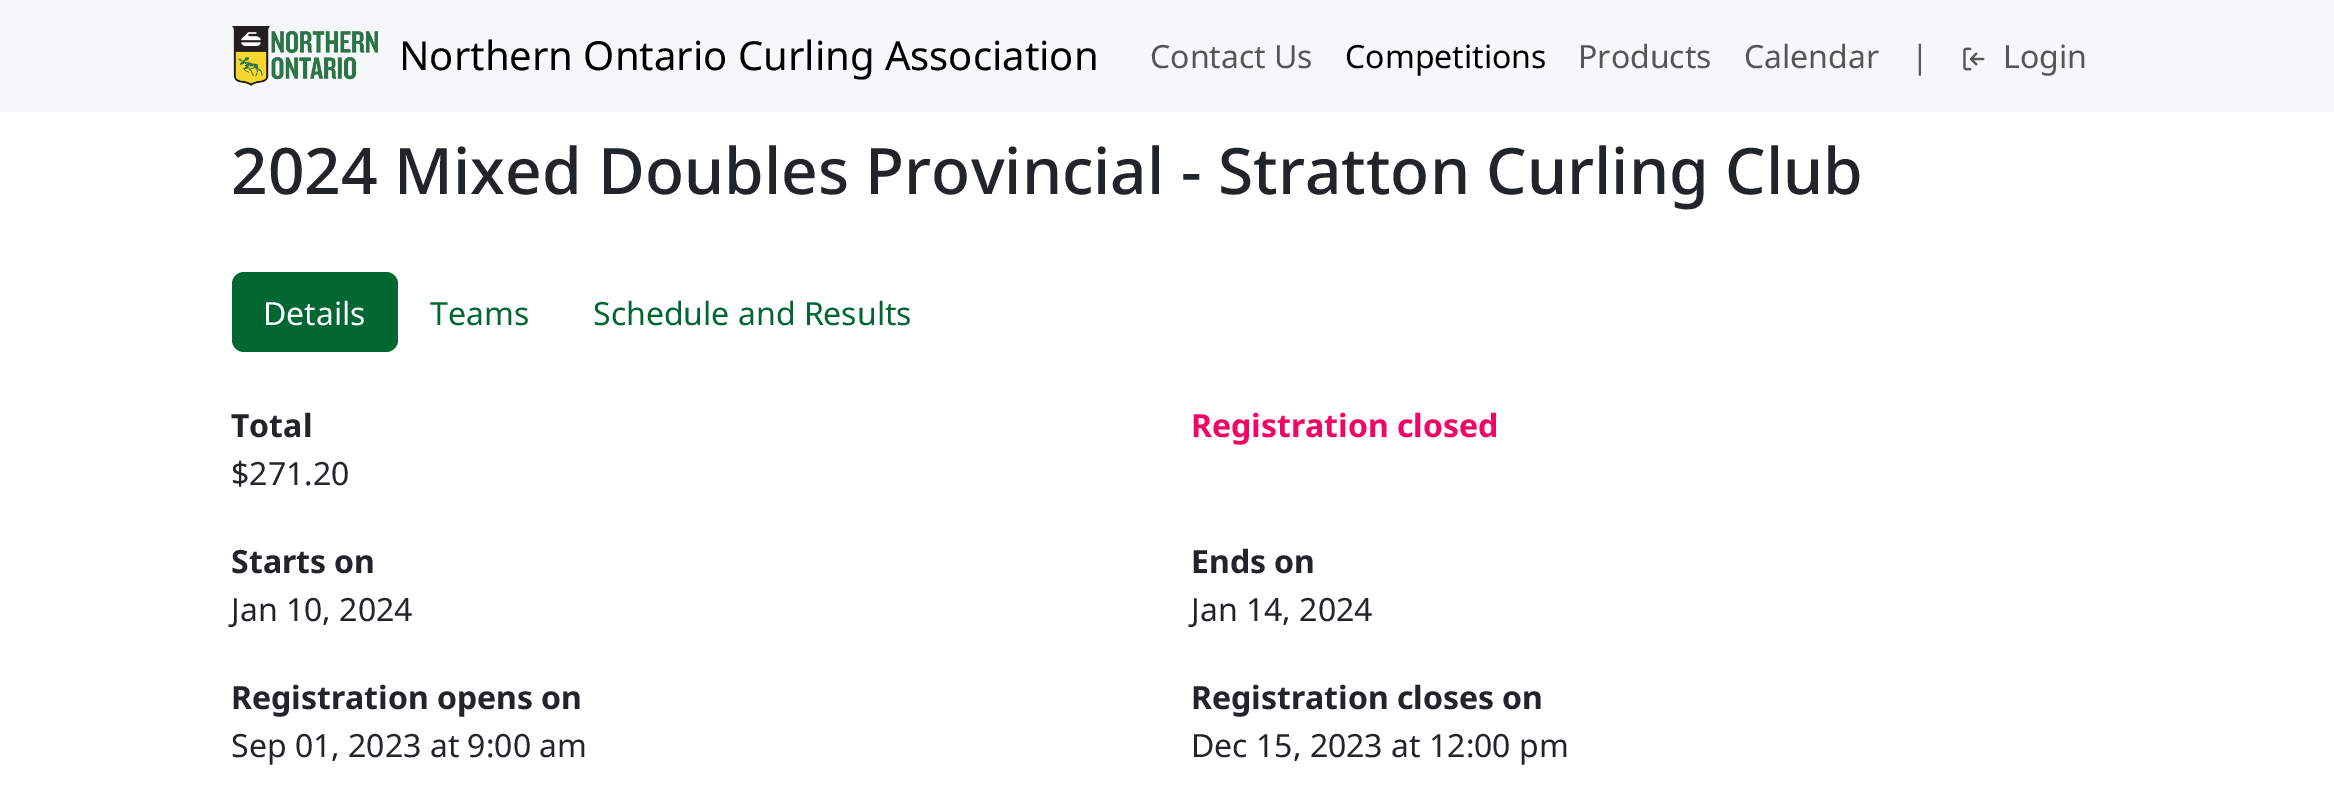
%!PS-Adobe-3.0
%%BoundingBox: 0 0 2334 795
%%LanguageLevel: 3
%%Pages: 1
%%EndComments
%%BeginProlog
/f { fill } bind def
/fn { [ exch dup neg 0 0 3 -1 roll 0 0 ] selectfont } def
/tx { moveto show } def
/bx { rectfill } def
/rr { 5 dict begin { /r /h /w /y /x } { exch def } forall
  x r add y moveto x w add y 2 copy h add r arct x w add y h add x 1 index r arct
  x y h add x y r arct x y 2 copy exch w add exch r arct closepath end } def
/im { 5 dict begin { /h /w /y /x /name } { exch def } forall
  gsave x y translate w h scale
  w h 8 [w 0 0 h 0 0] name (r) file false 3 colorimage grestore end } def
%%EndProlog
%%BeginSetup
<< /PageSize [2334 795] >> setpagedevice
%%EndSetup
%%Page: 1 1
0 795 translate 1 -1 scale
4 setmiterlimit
1 setgray
0 0 2334 795 bx
0.965 0.969 0.976 setrgbcolor
0 0 2334 112 bx
(image0.raw) 232 26 146 60 im
/NotoSans-Regular 40 fn
0 setgray
(Northern Ontario Curling Association) 399 70 tx
/NotoSans-Regular 32 fn
0.337 0.337 0.341 setrgbcolor
(Contact Us) 1150 68 tx
0 setgray
(Competitions) 1345 68 tx
0.337 0.337 0.341 setrgbcolor
(Products) 1578 68 tx
(Calendar) 1744 68 tx
(|) 1911 68 tx
(image1.raw) 1963 47 22 24 im
(Login) 2003 68 tx
/NotoSans-Medium 64 fn
0.129 0.145 0.161 setrgbcolor
(2024 Mixed Doubles Provincial - Stratton Curling Club) 231 194 tx
0 0.404 0.2 setrgbcolor
232 272 166 80 12 rr f
/NotoSans-Regular 32 fn
1 setgray
(Details) 263 325 tx
0 0.404 0.2 setrgbcolor
(Teams) 430 325 tx
(Schedule and Results) 593 325 tx
/NotoSans-Bold 32 fn
0.129 0.145 0.161 setrgbcolor
(Total) 231 437 tx
/NotoSans-Regular 32 fn
($271.20) 231 485 tx
/NotoSans-Bold 32 fn
0.941 0.027 0.4 setrgbcolor
(Registration closed) 1191 437 tx
0.129 0.145 0.161 setrgbcolor
(Starts on) 231 573 tx
/NotoSans-Regular 32 fn
(Jan 10, 2024) 231 621 tx
/NotoSans-Bold 32 fn
(Ends on) 1191 573 tx
/NotoSans-Regular 32 fn
(Jan 14, 2024) 1191 621 tx
/NotoSans-Bold 32 fn
(Registration opens on) 231 709 tx
/NotoSans-Regular 32 fn
(Sep 01, 2023 at 9:00 am) 231 757 tx
/NotoSans-Bold 32 fn
(Registration closes on) 1191 709 tx
/NotoSans-Regular 32 fn
(Dec 15, 2023 at 12:00 pm) 1191 757 tx
showpage
%%EOF
